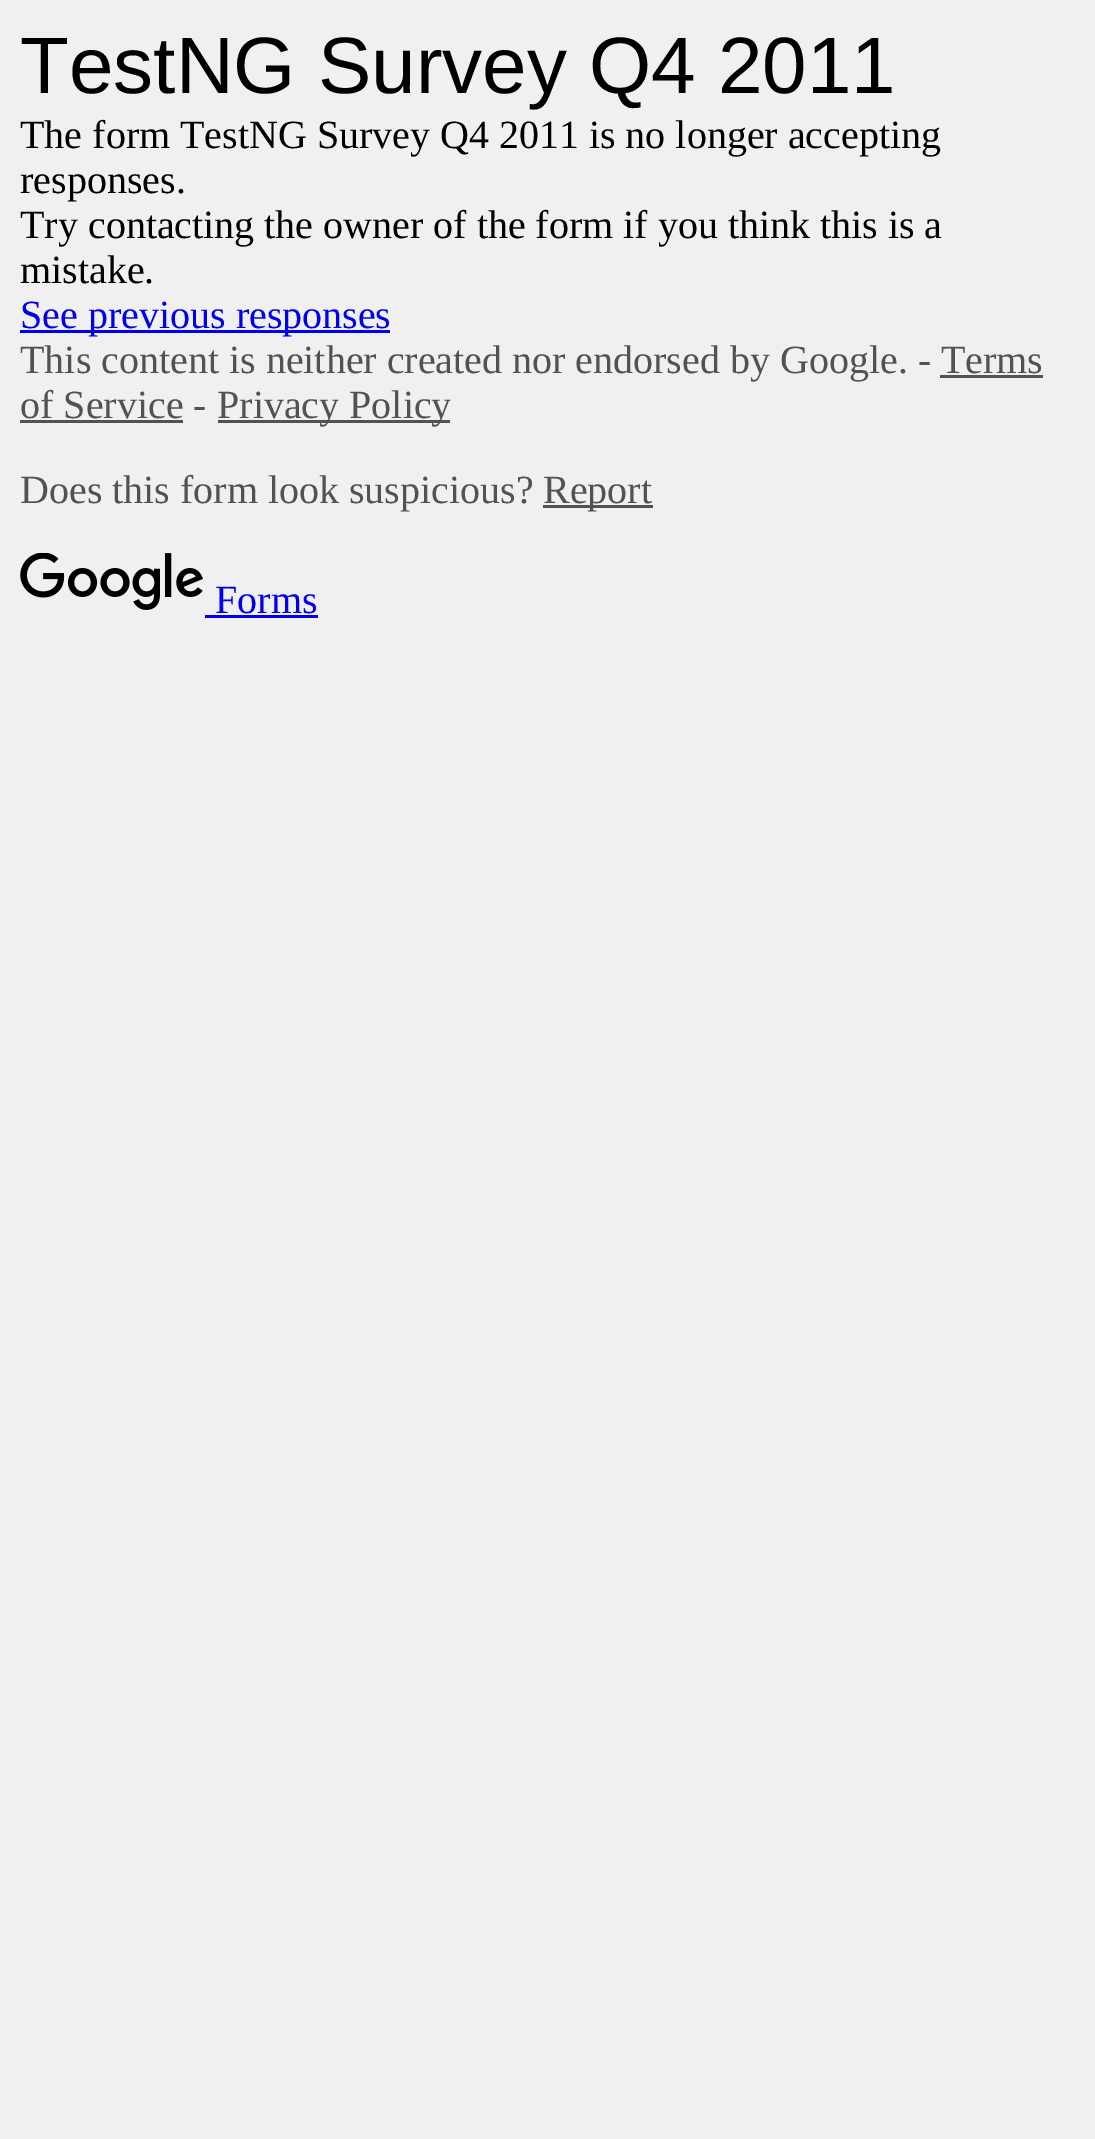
%!PS-Adobe-3.0
%%BoundingBox: 0 0 1095 2139
%%LanguageLevel: 3
%%Pages: 1
%%EndComments
%%BeginProlog
/fn { [ exch dup neg 0 0 3 -1 roll 0 0 ] selectfont } def
/tx { moveto show } def
/bx { rectfill } def
/im { 5 dict begin { /h /w /y /x /name } { exch def } forall
  gsave x y translate w h scale
  w h 8 [w 0 0 h 0 0] name (r) file false 3 colorimage grestore end } def
%%EndProlog
%%BeginSetup
<< /PageSize [1095 2139] >> setpagedevice
%%EndSetup
%%Page: 1 1
0 2139 translate 1 -1 scale
4 setmiterlimit
0.941 setgray
0 0 1095 2139 bx
/LiberationSans-Regular 80 fn
0 setgray
(TestNG Survey Q4 2011) 20 93 tx
/LiberationSerif-Regular 40 fn
(The form TestNG Survey Q4 2011 is no longer accepting) 20 148 tx
(responses.) 20 193 tx
(Try contacting the owner of the form if you think this is a) 20 238 tx
(mistake.) 20 283 tx
0 0 0.933 setrgbcolor
20 330 370 3 bx
(See previous responses) 20 328 tx
0.322 setgray
(This content is neither created nor endorsed by Google. - Terms) 20 373 tx
(of Service -) 20 418 tx
940 375 103 3 bx
20 420 163 3 bx
218 420 232 3 bx
(Privacy Policy) 217 418 tx
(Does this form look suspicious?) 20 503 tx
543 505 110 3 bx
(Report) 543 503 tx
(image0.raw) 20 553 183 57 im
0 0 0.933 setrgbcolor
(Forms) 215 613 tx
205 615 113 3 bx
showpage
%%EOF
